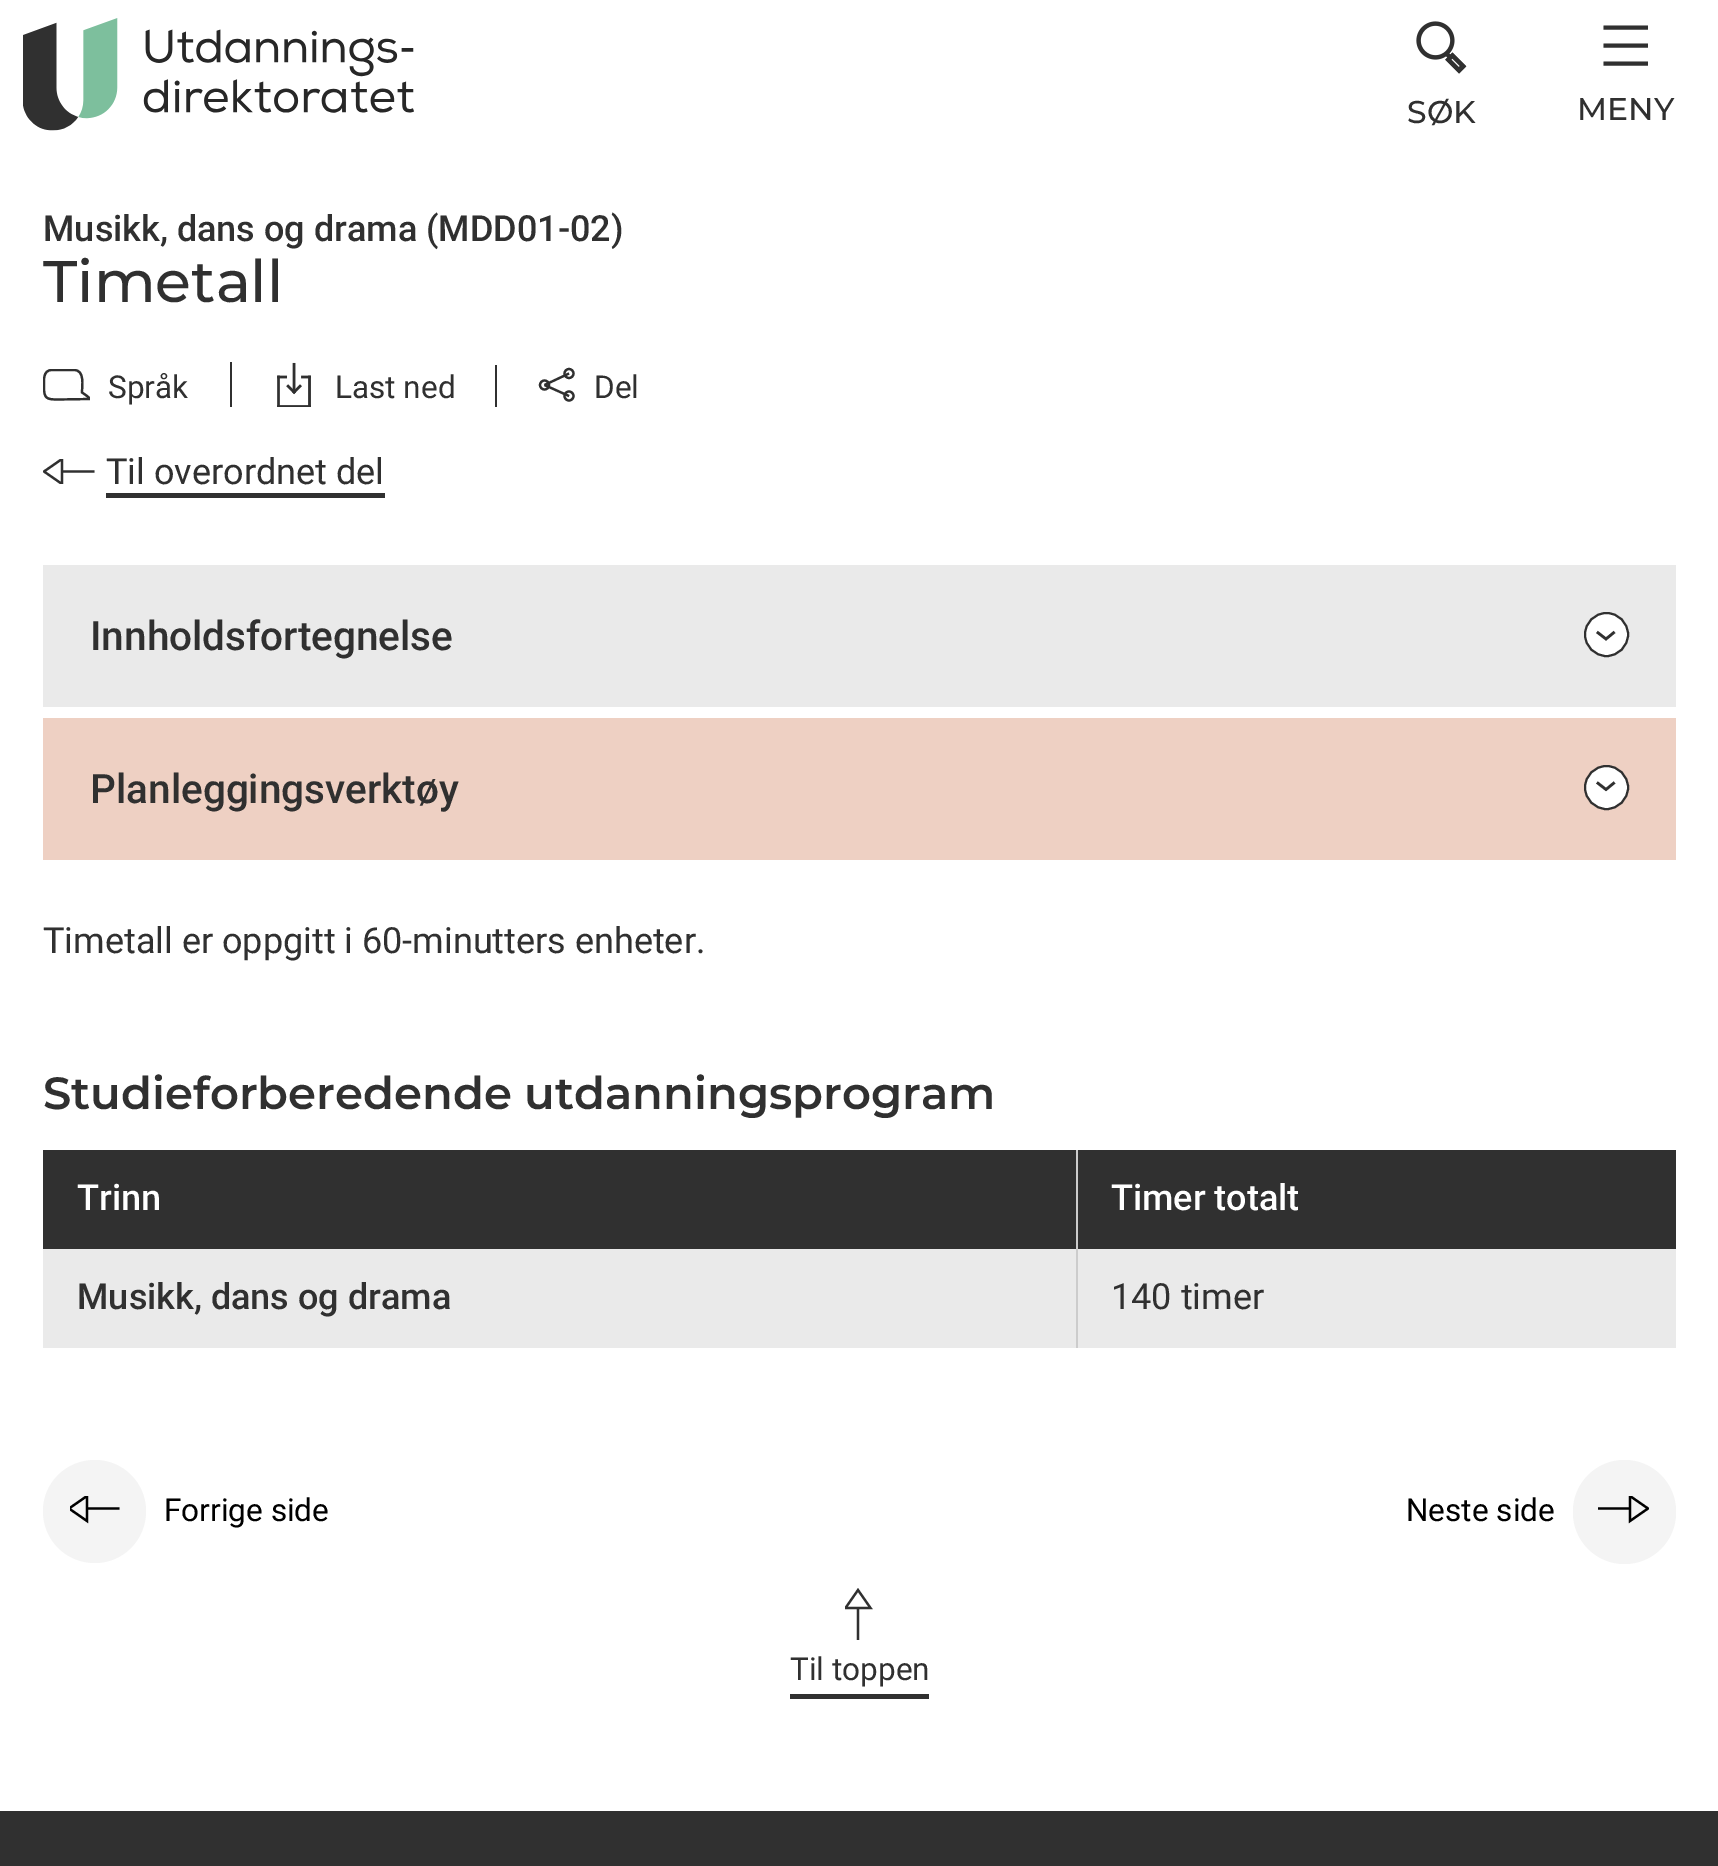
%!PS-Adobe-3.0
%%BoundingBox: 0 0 1718 1866
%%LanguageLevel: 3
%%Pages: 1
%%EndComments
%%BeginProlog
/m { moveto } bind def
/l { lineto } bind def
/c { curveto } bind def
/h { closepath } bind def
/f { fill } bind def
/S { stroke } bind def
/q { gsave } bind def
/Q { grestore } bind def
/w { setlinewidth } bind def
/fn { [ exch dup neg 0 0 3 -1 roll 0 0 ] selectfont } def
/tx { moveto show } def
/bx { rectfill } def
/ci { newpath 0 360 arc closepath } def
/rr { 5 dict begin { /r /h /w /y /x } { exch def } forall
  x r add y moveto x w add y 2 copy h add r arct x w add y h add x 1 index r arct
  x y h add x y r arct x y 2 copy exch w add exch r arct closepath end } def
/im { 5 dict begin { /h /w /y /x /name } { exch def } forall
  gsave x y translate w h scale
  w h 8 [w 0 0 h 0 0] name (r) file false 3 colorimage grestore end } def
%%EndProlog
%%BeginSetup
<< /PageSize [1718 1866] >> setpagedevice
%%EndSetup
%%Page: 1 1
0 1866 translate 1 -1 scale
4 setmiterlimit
1 setgray
0 0 1718 1866 bx
(image0.raw) 23 18 391 113 im
(image1.raw) 1416 21 51 53 im
/Montserrat-Medium 31.5 fn
0.188 setgray
(SØK) 1407 123 tx
4 w
2 setlinecap
1605.5 45.5 m 1646 45.5 l 1605.5 63.5 m 1646 63.5 l 1605.5 27.5 m 1646 27.5 l S
(MENY) 1577 120 tx
/Roboto-Medium 36 fn
(Musikk, dans og drama \(MDD01‑02\)) 43 241 tx
/Montserrat-Medium 58.5 fn
(Timetall) 43 302 tx
q
43 369 47 32 rectclip
2.2 w
0 setlinecap
52 370 m 42.5 370 44 381 44 387 c 44 398.5 46.5 399.5 58 399.5 c 89.5 399 l 90.5 398 83.5 393.5 82 392.5 c 82 385.5 85 370 74 370 c h S
Q
/Roboto-Regular 31.5 fn
(Språk) 108 398 tx
230 362 2 45 bx
(image2.raw) 277 362 34 45 im
(Last ned) 335 398 tx
495 365 2 42 bx
2.2 w
0 setlinecap
544.5 385 m 569 396 l 544.5 385 m 569 373.5 l S
569 373.5 4.5 ci S
569 396 4.5 ci S
544.5 385 4.5 ci S
(Del) 594 398 tx
q
43 459 52 25 rectclip
44 471.5 m 62 484 l 62 459 l h 63 471.5 m 94.5 471.5 l S
Q
/Roboto-Regular 36 fn
(Til overordnet del) 106 484 tx
106 493 279 5 bx
0.918 setgray
43 565 1633 142 bx
/Roboto-Medium 40.5 fn
0.188 setgray
(Innholdsfortegnelse) 90 650 tx
1 setgray
1606.5 634.5 21.5 ci q f Q
0.188 setgray
2 w
S
2.6 w
1597 632 m 1606 639 l 1614.5 632 l S
0.933 0.816 0.765 setrgbcolor
43 718 1633 142 bx
0.188 setgray
(Planleggingsverktøy) 90 803 tx
1 setgray
1606.5 787.5 21.5 ci q f Q
0.188 setgray
2 w
S
2.6 w
1597 782.5 m 1606 789.5 l 1614.5 782.5 l S
/Roboto-Regular 36 fn
(Timetall er oppgitt i 60-minutters enheter.) 43 953 tx
/Montserrat-SemiBold 45 fn
(Studieforberedende utdanningsprogram) 43 1109 tx
43 1150 1033 99 bx
/Roboto-Medium 36 fn
1 setgray
(Trinn) 77 1210 tx
0.188 setgray
1078 1150 598 99 bx
1 setgray
(Timer totalt) 1111 1210 tx
0.918 setgray
43 1249 1033 99 bx
0.8 setgray
1076 1150 2 198 bx
0.188 setgray
(Musikk, dans og drama) 77 1309 tx
0.918 setgray
1078 1249 598 99 bx
/Roboto-Regular 36 fn
0.188 setgray
(140 timer) 1111 1309 tx
0.957 setgray
95 1460 m 66 1460 43 1483 43 1511 c 43 1540 66 1563 95 1563 c 123 1563 146 1540 146 1511 c 146 1483 123 1460 95 1460 c h f
q
70 1496 52 30 rectclip
0 setgray
2.2 w
69 1508.5 m 87 1521 l 87 1496 l h 88 1508.5 m 119.5 1508.5 l S
Q
/Roboto-Regular 31.5 fn
0 setgray
(Forrige side) 164 1521 tx
(Neste side) 1406 1521 tx
0.957 setgray
1573 1460 103 104 51.5 rr f
q
1598 1496 51 30 rectclip
0 setgray
2.2 w
1648 1508.5 m 1630 1521 l 1630 1496 l h 1629 1508.5 m 1597.5 1508.5 l S
Q
0.188 setgray
790 1694 139 5 bx
q
845 1639.5 m 845 1588 l 874 1588 l 874 1639.5 l h clip newpath
2.2 w
858 1590 m 870.5 1608 l 845.5 1608 l h 858 1609 m 858 1640.5 l S
Q
(Til toppen) 790 1680 tx
0 1811 1718 55 bx
showpage
%%EOF
